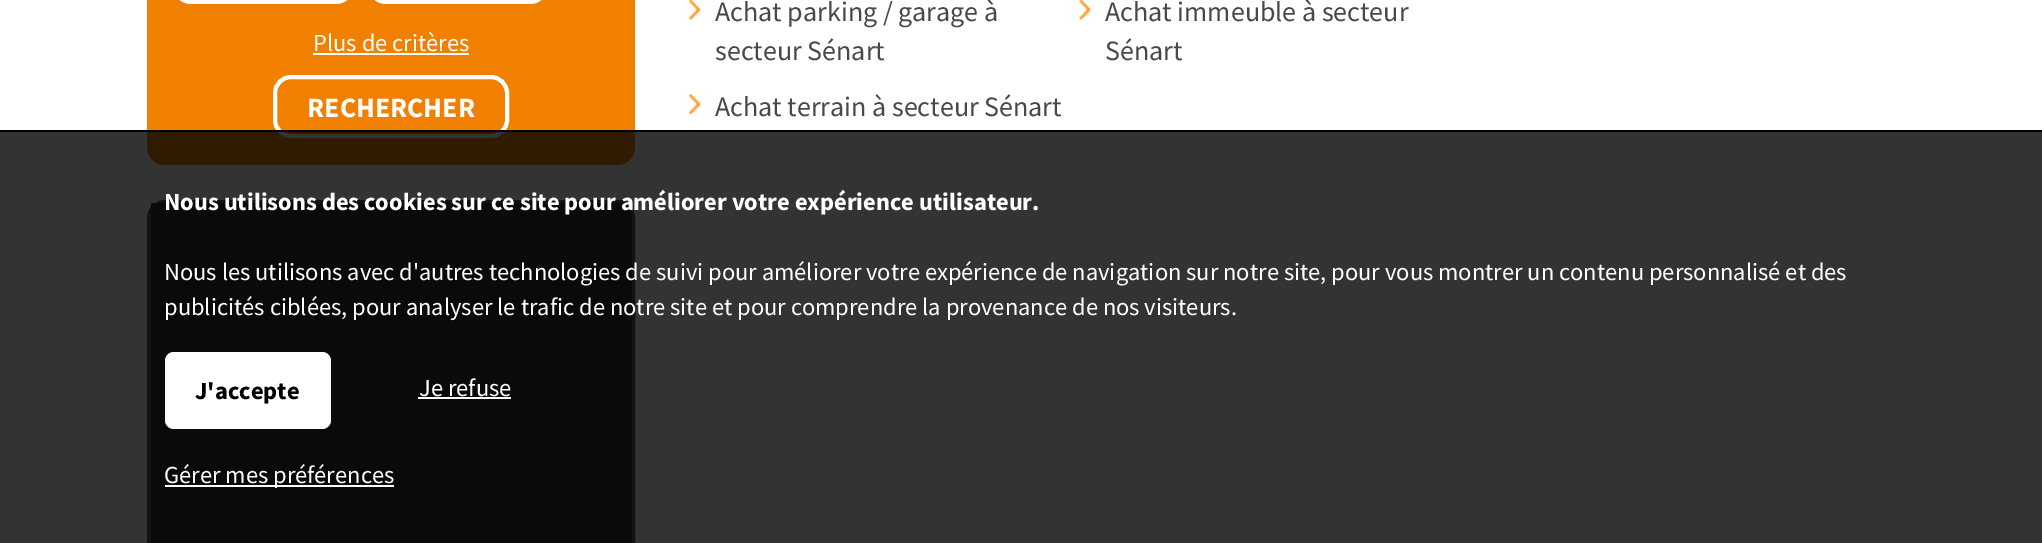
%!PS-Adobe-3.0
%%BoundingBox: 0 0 2042 543
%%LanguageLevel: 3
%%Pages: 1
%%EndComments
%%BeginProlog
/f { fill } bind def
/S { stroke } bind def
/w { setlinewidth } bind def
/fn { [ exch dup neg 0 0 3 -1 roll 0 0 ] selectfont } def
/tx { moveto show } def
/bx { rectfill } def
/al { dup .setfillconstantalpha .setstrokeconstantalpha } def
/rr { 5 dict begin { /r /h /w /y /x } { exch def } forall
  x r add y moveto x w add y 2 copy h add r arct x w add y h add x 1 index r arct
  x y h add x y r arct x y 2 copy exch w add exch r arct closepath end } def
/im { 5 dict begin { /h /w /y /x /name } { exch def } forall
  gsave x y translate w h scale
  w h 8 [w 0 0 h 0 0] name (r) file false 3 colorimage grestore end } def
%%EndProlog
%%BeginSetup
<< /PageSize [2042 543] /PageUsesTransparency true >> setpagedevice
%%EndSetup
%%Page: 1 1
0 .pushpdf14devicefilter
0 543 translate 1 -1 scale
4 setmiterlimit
1 setgray
0 0 2042 543 bx
0.945 0.502 0 setrgbcolor
147 -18 488 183 18 rr f
1 setgray
173 -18 181 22 18 rr f
368 -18 180 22 18 rr f
/SourceSansPro-Regular 24.5 fn
(Plus de critères) 313 51 tx
313 53 156 2 bx
4 w
275 77 232 59 16 rr S
/SourceSansPro-Bold 28 fn
(RECHERCHER) 307 117 tx
0.345 0.345 0.353 setrgbcolor
149 202 484 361 16 rr S
0.2 setgray
151 203 481 340 bx
(image0.raw) 689 0 12 20 im
/SourceSansPro-Regular 28 fn
0.282 0.282 0.29 setrgbcolor
(Achat parking / garage à) 715 21 tx
(secteur Sénart) 715 60 tx
(image1.raw) 1079 0 12 20 im
(Achat immeuble à secteur) 1105 21 tx
(Sénart) 1105 60 tx
(image2.raw) 689 94 12 21 im
(Achat terrain à secteur Sénart) 715 116 tx
0.8 al
0 setgray
0 132 2042 411 bx
1 al
0 130 2042 2 bx
/SourceSansPro-Bold 24.5 fn
1 setgray
(Nous utilisons des cookies sur ce site pour améliorer votre expérience utilisateur.) 164 210 tx
/SourceSansPro-Regular 24.5 fn
(Nous les utilisons avec d'autres technologies de suivi pour améliorer votre expérience de navigation sur notre site, pour vous montrer un contenu personnalisé et des) 164 280 tx
(publicités ciblées, pour analyser le trafic de notre site et pour comprendre la provenance de nos visiteurs.) 164 315 tx
165 352 166 77 9 rr f
/SourceSansPro-Bold 24.5 fn
0 setgray
(J'accepte) 195 399 tx
/SourceSansPro-Regular 24.5 fn
1 setgray
(Je refuse) 419 396 tx
418 397 93 2 bx
165 485 229 2 bx
(Gérer mes préférences) 164 483 tx
.poppdf14devicefilter showpage
%%EOF
